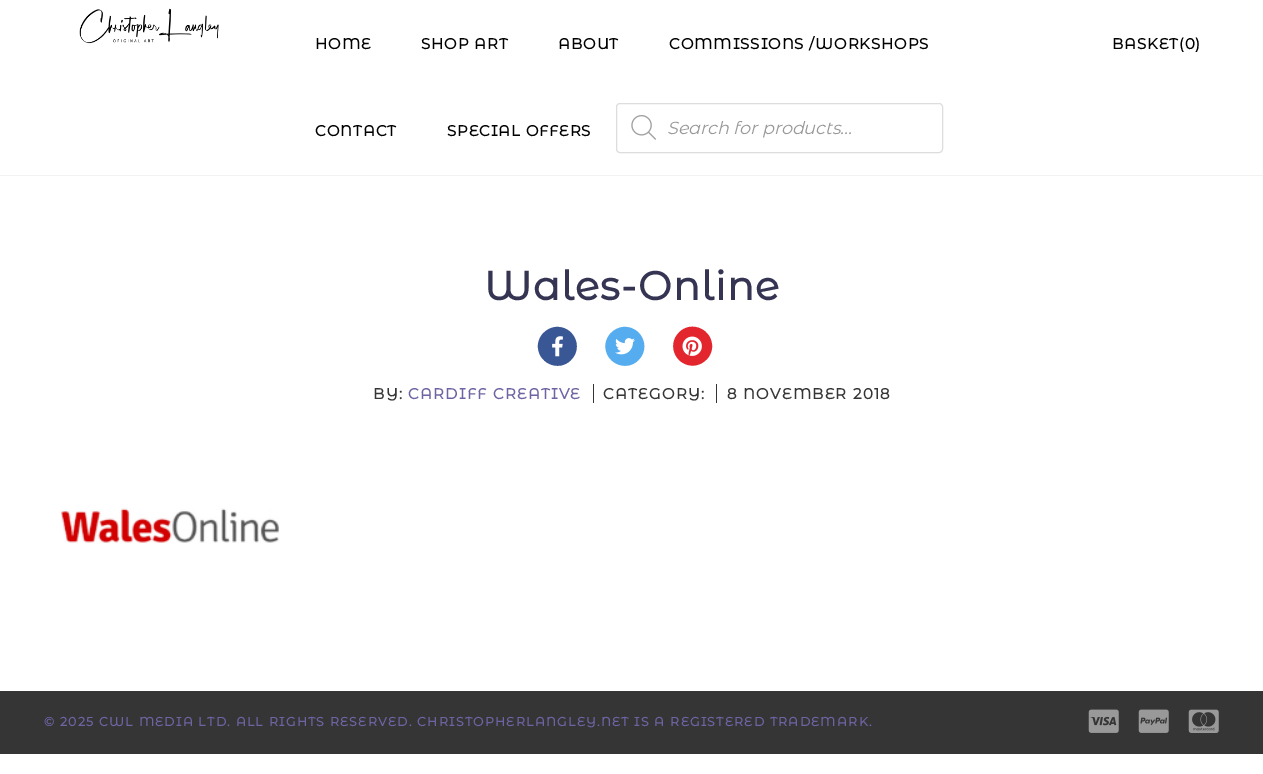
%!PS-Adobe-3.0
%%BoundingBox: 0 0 1263 774
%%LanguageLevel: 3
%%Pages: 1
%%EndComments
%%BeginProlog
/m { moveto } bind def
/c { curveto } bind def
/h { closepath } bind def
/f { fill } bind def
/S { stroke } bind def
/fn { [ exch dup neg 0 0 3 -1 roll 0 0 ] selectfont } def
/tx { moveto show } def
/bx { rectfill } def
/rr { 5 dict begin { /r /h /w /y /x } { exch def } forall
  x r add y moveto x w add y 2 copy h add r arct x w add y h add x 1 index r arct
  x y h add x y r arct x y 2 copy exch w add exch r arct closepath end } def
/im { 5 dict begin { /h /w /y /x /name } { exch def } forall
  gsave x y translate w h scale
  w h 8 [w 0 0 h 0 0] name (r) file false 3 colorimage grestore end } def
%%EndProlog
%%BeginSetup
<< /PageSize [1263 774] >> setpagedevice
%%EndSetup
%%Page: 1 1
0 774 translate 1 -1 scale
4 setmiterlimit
1 setgray
0 0 1263 774 bx
0.949 setgray
0 175 1263 1 bx
(image0.raw) 79 8 140 36 im
/MontserratAlternates-Bold 15 fn
0 setgray
315 49 m 0.9 0 (HOME) ashow
421 49 m 0.9 0 (SHOP ART) ashow
558 49 m 0.9 0 (ABOUT) ashow
669 49 m 0.9 0 (COMMISSIONS /WORKSHOPS) ashow
315 136 m 0.9 0 (CONTACT) ashow
447 136 m 0.9 0 (SPECIAL OFFERS) ashow
0.867 setgray
616.5 103.5 326 49 3.5 rr S
(image1.raw) 631 115 25 25 im
/MontserratAlternates-Italic 17.5 fn
0.6 setgray
(Search for products...) 667 134 tx
/MontserratAlternates-Bold 15 fn
0 setgray
1112 49 m 0.9 0 (BASKET\(0\)) ashow
/MontserratAlternates-Bold 40 fn
0.208 0.208 0.325 setrgbcolor
484 300 m 1.25 0 (Wales-Online) ashow
0.227 0.341 0.584 setrgbcolor
544 332.5 m 547 329.5 551 327.5 555.5 327 c 573.5 325.5 584 347 571 360 c 558.5 373 536.5 362.5 538 344.5 c 538.5 340 540.5 335.5 544 332.5 c h f
(image2.raw) 552 336 11 21 im
0.333 0.675 0.933 setrgbcolor
611.5 332.5 m 614.5 329.5 618.5 327.5 623 327 c 641 325.5 651.5 347 638.5 360 c 626 373 604 362.5 605.5 344.5 c 606 340 608 335.5 611.5 332.5 c h f
(image3.raw) 615 338 20 17 im
0.89 0.149 0.18 setrgbcolor
679 332.5 m 691.5 319.5 713.5 330 712 348 c 711.5 352.5 709.5 357 706 360 c 703 363 699 365 694.5 365.5 c 676.5 367 666 345.5 679 332.5 c h f
(image4.raw) 682 336 20 20 im
/MontserratAlternates-Bold 15 fn
0.208 setgray
373 399 m 1.25 0 (BY:) ashow
0.435 0.388 0.639 setrgbcolor
408 399 m 1.25 0 (CARDIFF CREATIVE) ashow
0.208 setgray
593 384 1 19 bx
603 399 m 1.25 0 (CATEGORY:) ashow
716 384 1 19 bx
727 399 m 1.25 0 (8 NOVEMBER 2018) ashow
(image5.raw) 61 508 219 35 im
0 691 1263 63 bx
/MontserratAlternates-Bold 12.5 fn
0.435 0.388 0.639 setrgbcolor
44 726 m 1.25 0 (© 2025 CWL MEDIA LTD. ALL RIGHTS RESERVED. CHRISTOPHERLANGLEY.NET IS A REGISTERED TRADEMARK.) ashow
(image6.raw) 1088 709 31 24 im
(image7.raw) 1138 709 31 24 im
(image8.raw) 1188 709 31 24 im
showpage
%%EOF
